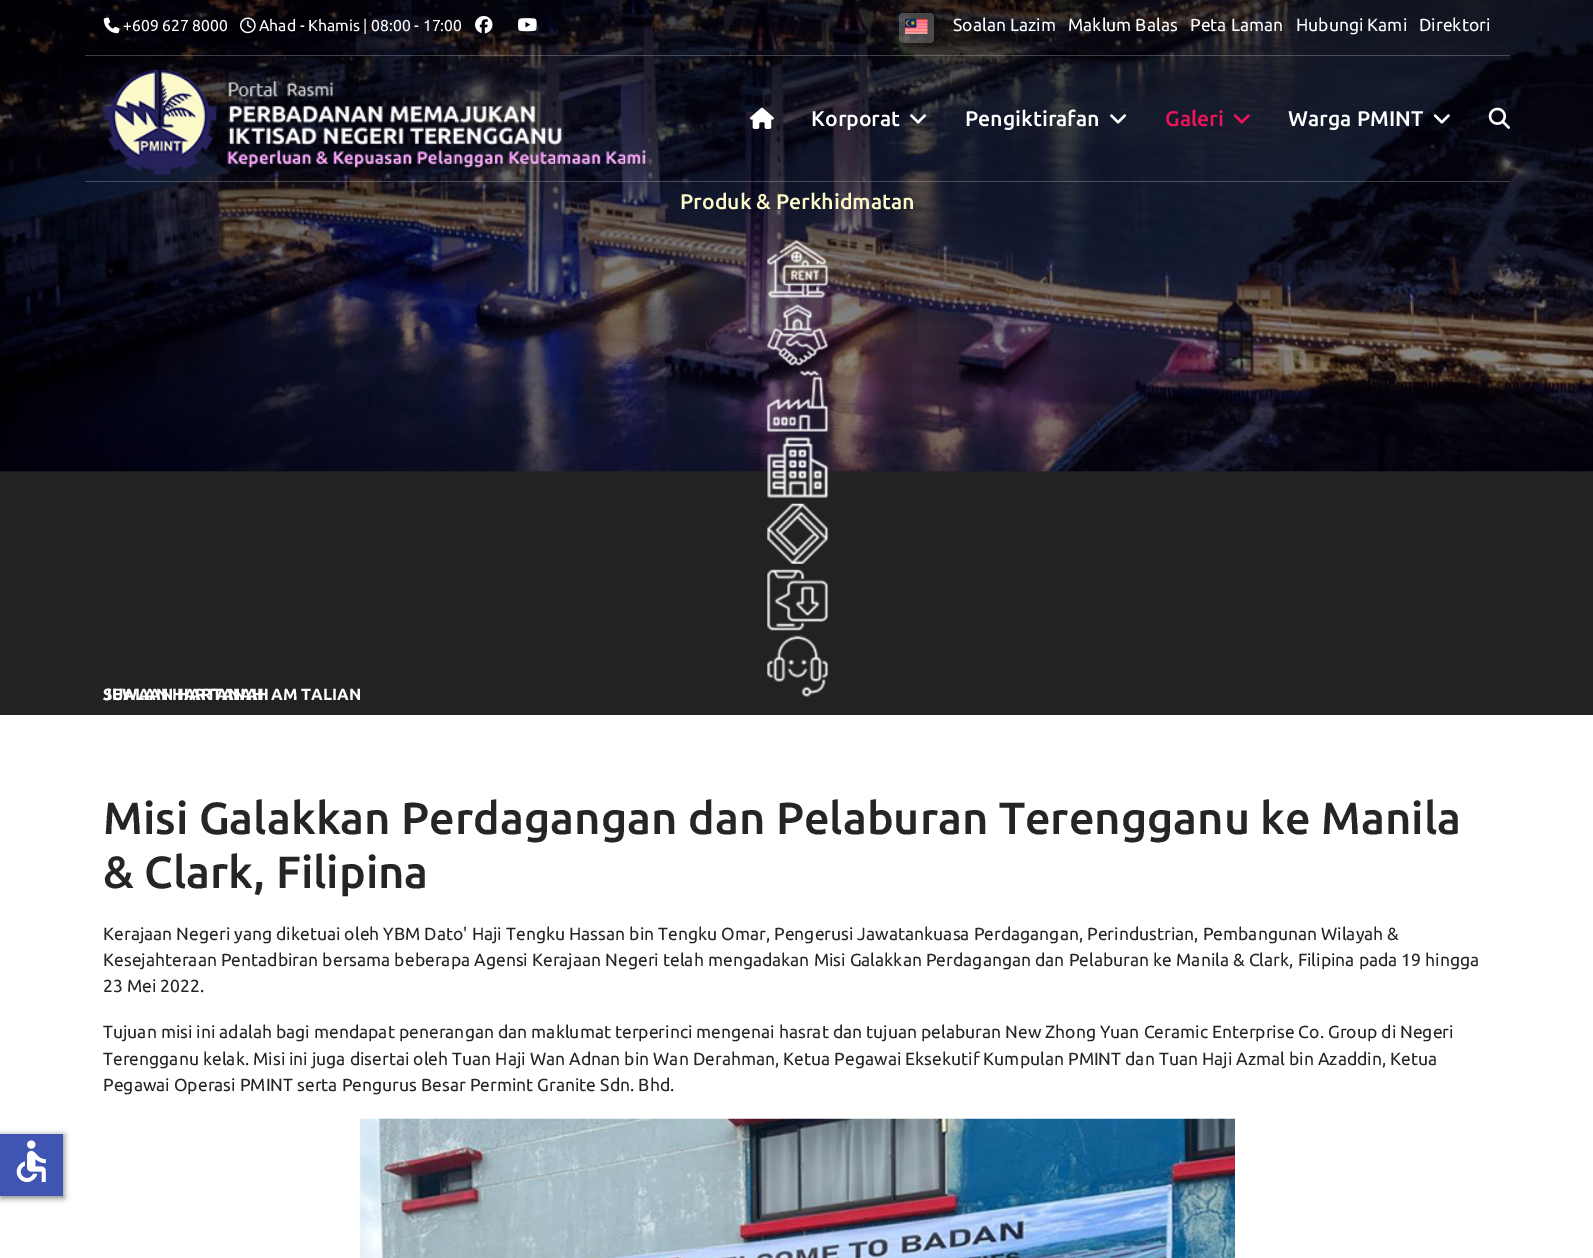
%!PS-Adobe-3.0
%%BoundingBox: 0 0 1593 1258
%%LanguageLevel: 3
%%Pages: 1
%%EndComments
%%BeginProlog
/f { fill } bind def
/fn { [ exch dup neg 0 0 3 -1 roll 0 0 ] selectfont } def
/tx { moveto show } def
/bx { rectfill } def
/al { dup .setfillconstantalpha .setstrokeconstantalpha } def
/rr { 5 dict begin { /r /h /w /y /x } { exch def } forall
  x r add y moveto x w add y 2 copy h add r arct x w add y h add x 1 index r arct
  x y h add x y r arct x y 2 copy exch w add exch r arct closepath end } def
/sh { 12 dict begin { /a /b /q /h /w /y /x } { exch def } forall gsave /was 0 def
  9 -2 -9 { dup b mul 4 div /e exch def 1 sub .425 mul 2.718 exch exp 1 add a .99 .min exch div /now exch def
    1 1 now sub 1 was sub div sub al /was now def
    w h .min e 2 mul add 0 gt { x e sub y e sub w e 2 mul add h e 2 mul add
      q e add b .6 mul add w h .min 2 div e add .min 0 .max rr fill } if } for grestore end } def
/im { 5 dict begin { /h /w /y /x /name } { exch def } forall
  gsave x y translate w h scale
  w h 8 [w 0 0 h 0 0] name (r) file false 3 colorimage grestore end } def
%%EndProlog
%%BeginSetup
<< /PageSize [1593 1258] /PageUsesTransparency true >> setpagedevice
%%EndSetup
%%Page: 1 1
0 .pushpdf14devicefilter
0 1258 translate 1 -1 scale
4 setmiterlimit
0.133 setgray
0 0 1593 1258 bx
(image0.raw) 0 0 1593 472 im
0.3 al
0.8 setgray
85 55 1425 1 bx
1 al
(image1.raw) 103 17 17 17 im
/Ubuntu-Regular 15.75 fn
1 setgray
(+609 627 8000) 123 31 tx
(image2.raw) 240 17 16 17 im
(Ahad - Khamis | 08:00 - 17:00) 259 31 tx
(image3.raw) 475 15 18 19 im
(image4.raw) 518 18 19 14 im
0.5 al
0.51 setgray
899 13 35 30 4 rr f
1 al
(image5.raw) 905 18 23 16 im
/Ubuntu-Regular 17.5 fn
1 setgray
(Soalan Lazim) 953 31 tx
(Maklum Balas) 1068 31 tx
(Peta Laman) 1190 31 tx
(Hubungi Kami) 1296 31 tx
(Direktori) 1419 31 tx
(image6.raw) 103 69 544 106 im
(image7.raw) 750 107 24 22 im
/Ubuntu-Medium 21.25 fn
(Korporat) 811 126 tx
(image8.raw) 910 114 16 10 im
(Pengiktirafan) 965 126 tx
(image9.raw) 1110 114 16 10 im
0.929 0.078 0.357 setrgbcolor
(Galeri) 1165 126 tx
(image10.raw) 1233 114 17 10 im
1 setgray
(Warga PMINT) 1288 126 tx
(image11.raw) 1433 114 17 10 im
(image12.raw) 1488 107 22 22 im
0.3 al
0.8 setgray
85 181 1425 1 bx
1 al
0.984 0.976 0.784 setrgbcolor
(Produk & Perkhidmatan) 680 209 tx
(image13.raw) 767 370 62 62 im
(image14.raw) 767 436 62 62 im
(image15.raw) 767 503 62 61 im
(image16.raw) 767 239 62 59 im
/Ubuntu-Bold 16.25 fn
1 setgray
(SEWAAN HARTANAH) 103 700 tx
(image17.raw) 767 635 62 62 im
(image18.raw) 767 304 62 62 im
(JUALAN HARTANAH) 103 700 tx
(image19.raw) 767 569 62 62 im
(AM TALIAN) 271 700 tx
0 715 1593 543 bx
/Ubuntu-Medium 45 fn
0.145 setgray
(Misi Galakkan Perdagangan dan Pelaburan Terengganu ke Manila) 103 834 tx
(& Clark, Filipina) 103 888 tx
/Ubuntu-Regular 17.5 fn
(Kerajaan Negeri yang diketuai oleh YBM Dato' Haji Tengku Hassan bin Tengku Omar, Pengerusi Jawatankuasa Perdagangan, Perindustrian, Pembangunan Wilayah &) 103 940 tx
(Kesejahteraan Pentadbiran bersama beberapa Agensi Kerajaan Negeri telah mengadakan Misi Galakkan Perdagangan dan Pelaburan ke Manila & Clark, Filipina pada 19 hingga) 103 966 tx
(23 Mei 2022.) 103 992 tx
(Tujuan misi ini adalah bagi mendapat penerangan dan maklumat terperinci mengenai hasrat dan tujuan pelaburan New Zhong Yuan Ceramic Enterprise Co. Group di Negeri) 103 1038 tx
(Terengganu kelak. Misi ini juga disertai oleh Tuan Haji Wan Adnan bin Wan Derahman, Ketua Pegawai Eksekutif Kumpulan PMINT dan Tuan Haji Azmal bin Azaddin, Ketua) 103 1065 tx
(Pegawai Operasi PMINT serta Pengurus Besar Permint Granite Sdn. Bhd.) 103 1091 tx
(image20.raw) 360 1118 875 140 im
0 setgray
1 1135 63 63 0 3 0.5 sh
0.251 0.329 0.698 setrgbcolor
0 1134 63 62 bx
(image21.raw) 16 1140 30 43 im
.poppdf14devicefilter showpage
%%EOF
